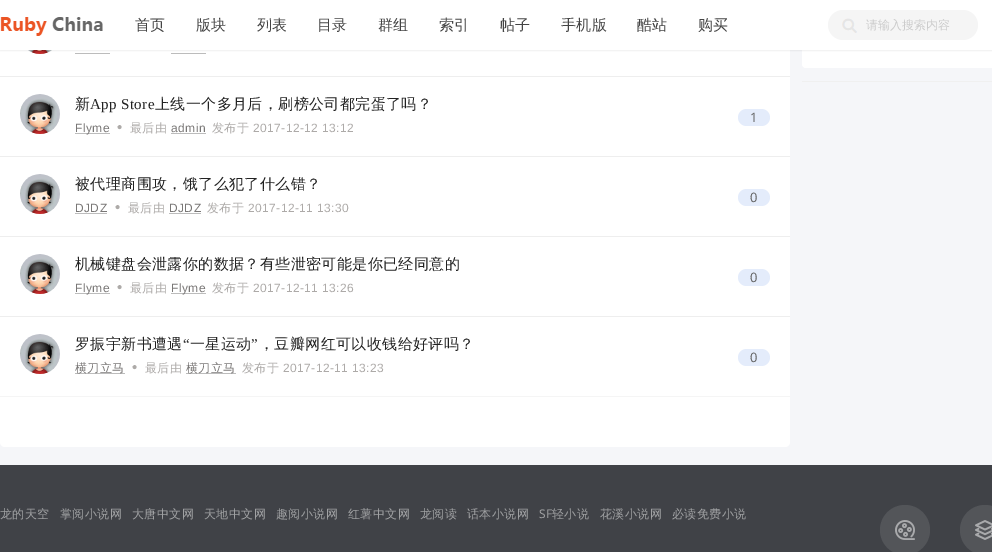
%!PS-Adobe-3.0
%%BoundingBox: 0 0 992 552
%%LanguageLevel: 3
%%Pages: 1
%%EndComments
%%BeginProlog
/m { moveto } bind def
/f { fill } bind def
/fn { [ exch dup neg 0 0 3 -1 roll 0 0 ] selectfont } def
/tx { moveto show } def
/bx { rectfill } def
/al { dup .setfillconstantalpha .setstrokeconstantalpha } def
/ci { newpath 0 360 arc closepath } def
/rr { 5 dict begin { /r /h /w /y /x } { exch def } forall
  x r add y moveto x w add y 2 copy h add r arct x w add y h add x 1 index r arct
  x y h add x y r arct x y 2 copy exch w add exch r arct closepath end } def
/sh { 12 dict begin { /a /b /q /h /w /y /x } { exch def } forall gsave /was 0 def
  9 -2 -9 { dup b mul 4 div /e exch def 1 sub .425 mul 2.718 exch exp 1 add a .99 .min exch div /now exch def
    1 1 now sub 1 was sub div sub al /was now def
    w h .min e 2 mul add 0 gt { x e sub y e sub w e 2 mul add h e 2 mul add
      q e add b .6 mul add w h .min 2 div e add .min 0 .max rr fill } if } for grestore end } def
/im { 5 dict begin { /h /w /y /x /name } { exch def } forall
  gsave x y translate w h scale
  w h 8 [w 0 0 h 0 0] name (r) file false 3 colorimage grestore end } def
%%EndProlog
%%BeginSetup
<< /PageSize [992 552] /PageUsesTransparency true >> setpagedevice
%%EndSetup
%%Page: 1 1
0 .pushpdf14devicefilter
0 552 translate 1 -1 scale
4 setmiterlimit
0.961 0.965 0.976 setrgbcolor
0 0 992 552 bx
1 setgray
802 -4 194 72 4 rr f
0 -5 790 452 5 rr f
(image2.raw) 28 50 24 4 im
0.737 setgray
75 53 35 1 bx
171 53 35 1 bx
0 setgray
0 1 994 50 0 0.5 0.06 sh
1 setgray
0 0 992 50 bx
(image0.raw) 0 17 103 19 im
/WenQuanYiZenHei-Medium 15 fn
0.267 setgray
135 30 m 0.4 0 (首页) ashow
196 30 m 0.4 0 (版块) ashow
257 30 m 0.4 0 (列表) ashow
317 30 m 0.4 0 (目录) ashow
378 30 m 0.4 0 (群组) ashow
439 30 m 0.4 0 (索引) ashow
500 30 m 0.4 0 (帖子) ashow
561 30 m 0.4 0 (手机版) ashow
637 30 m 0.4 0 (酷站) ashow
698 30 m 0.4 0 (购买) ashow
0.961 setgray
828 10 150 30 15 rr f
(image1.raw) 842 18 15 15 im
/WenQuanYiZenHei-Medium 12 fn
0.8 setgray
(请输入搜索内容) 866 29 tx
0.941 setgray
802 81 190 1 bx
0.933 setgray
0 76 790 1 bx
(image3.raw) 20 94 40 40 im
/WenQuanYiZenHei-Medium 15 fn
0.133 setgray
75 109 m 0.4 0 (新) ashow
/LiberationSerif-Regular 15 fn
90 109 m 0.4 0 (App Store) ashow
/WenQuanYiZenHei-Medium 15 fn
155 109 m 0.4 0 (上线一个多月后，刷榜公司都完蛋了吗？) ashow
0.894 0.925 0.984 setrgbcolor
738 109 32 17 8.5 rr f
/NotoSans-Regular 13 fn
0.4 setgray
750 122 m 0.4 0 (1) ashow
0.737 setgray
75 133 35 1 bx
/LiberationSans-Regular 12 fn
0.475 0.467 0.463 setrgbcolor
75 132 m 0.4 0 (Flyme) ashow
/LiberationSans-Regular 15 fn
0.678 0.667 0.659 setrgbcolor
117 132 m 0.4 0 (•) ashow
/WenQuanYiZenHei-Medium 12 fn
130 132 m 0.4 0 (最后由) ashow
/LiberationSans-Regular 12 fn
0.475 0.467 0.463 setrgbcolor
171 132 m 0.4 0 (admin) ashow
0.737 setgray
171 133 35 1 bx
/WenQuanYiZenHei-Medium 12 fn
0.678 0.667 0.659 setrgbcolor
212 132 m 0.4 0 (发布于) ashow
/LiberationSans-Regular 12 fn
253 132 m 0.4 0 (2017-12-12 13:12) ashow
0.933 setgray
0 156 790 1 bx
(image3.raw) 20 174 40 40 im
/WenQuanYiZenHei-Medium 15 fn
0.133 setgray
75 189 m 0.4 0 (被代理商围攻，饿了么犯了什么错？) ashow
0.894 0.925 0.984 setrgbcolor
738 189 32 17 8.5 rr f
/NotoSans-Regular 13 fn
0.4 setgray
750 202 m 0.4 0 (0) ashow
/LiberationSans-Regular 12 fn
0.475 0.467 0.463 setrgbcolor
75 212 m 0.4 0 (DJDZ) ashow
0.737 setgray
75 213 32 1 bx
/LiberationSans-Regular 15 fn
0.678 0.667 0.659 setrgbcolor
115 212 m 0.4 0 (•) ashow
/WenQuanYiZenHei-Medium 12 fn
128 212 m 0.4 0 (最后由) ashow
/LiberationSans-Regular 12 fn
0.475 0.467 0.463 setrgbcolor
169 212 m 0.4 0 (DJDZ) ashow
0.737 setgray
169 213 32 1 bx
/WenQuanYiZenHei-Medium 12 fn
0.678 0.667 0.659 setrgbcolor
207 212 m 0.4 0 (发布于) ashow
/LiberationSans-Regular 12 fn
248 212 m 0.4 0 (2017-12-11 13:30) ashow
0.933 setgray
0 236 790 1 bx
(image3.raw) 20 254 40 40 im
/WenQuanYiZenHei-Medium 15 fn
0.133 setgray
75 269 m 0.4 0 (机械键盘会泄露你的数据？有些泄密可能是你已经同意的) ashow
0.894 0.925 0.984 setrgbcolor
738 269 32 17 8.5 rr f
/NotoSans-Regular 13 fn
0.4 setgray
750 282 m 0.4 0 (0) ashow
0.737 setgray
75 293 35 1 bx
/LiberationSans-Regular 12 fn
0.475 0.467 0.463 setrgbcolor
75 292 m 0.4 0 (Flyme) ashow
/LiberationSans-Regular 15 fn
0.678 0.667 0.659 setrgbcolor
117 292 m 0.4 0 (•) ashow
/WenQuanYiZenHei-Medium 12 fn
130 292 m 0.4 0 (最后由) ashow
0.737 setgray
171 293 35 1 bx
/LiberationSans-Regular 12 fn
0.475 0.467 0.463 setrgbcolor
171 292 m 0.4 0 (Flyme) ashow
/WenQuanYiZenHei-Medium 12 fn
0.678 0.667 0.659 setrgbcolor
212 292 m 0.4 0 (发布于) ashow
/LiberationSans-Regular 12 fn
253 292 m 0.4 0 (2017-12-11 13:26) ashow
0.933 setgray
0 316 790 1 bx
(image3.raw) 20 334 40 40 im
/WenQuanYiZenHei-Medium 15 fn
0.133 setgray
75 349 m 0.4 0 (罗振宇新书遭遇) ashow
/LiberationSerif-Regular 15 fn
183 349 m 0.4 0 (“) ashow
/WenQuanYiZenHei-Medium 15 fn
190 349 m 0.4 0 (一星运动) ashow
/LiberationSerif-Regular 15 fn
251 349 m 0.4 0 (”) ashow
/WenQuanYiZenHei-Medium 15 fn
259 349 m 0.4 0 (，豆瓣网红可以收钱给好评吗？) ashow
0.894 0.925 0.984 setrgbcolor
738 349 32 17 8.5 rr f
/NotoSans-Regular 13 fn
0.4 setgray
750 362 m 0.4 0 (0) ashow
0.737 setgray
75 373 50 1 bx
/WenQuanYiZenHei-Medium 12 fn
0.475 0.467 0.463 setrgbcolor
75 372 m 0.4 0 (横刀立马) ashow
/LiberationSans-Regular 15 fn
0.678 0.667 0.659 setrgbcolor
132 372 m 0.4 0 (•) ashow
/WenQuanYiZenHei-Medium 12 fn
145 372 m 0.4 0 (最后由) ashow
0.737 setgray
186 373 50 1 bx
0.475 0.467 0.463 setrgbcolor
186 372 m 0.4 0 (横刀立马) ashow
0.678 0.667 0.659 setrgbcolor
242 372 m 0.4 0 (发布于) ashow
/LiberationSans-Regular 12 fn
283 372 m 0.4 0 (2017-12-11 13:23) ashow
0.961 setgray
0 396 790 1 bx
0.251 0.259 0.278 setrgbcolor
0 465 992 87 bx
/WenQuanYiZenHei-Medium 12 fn
0.627 0.631 0.639 setrgbcolor
0 518 m 0.4 0 (龙的天空) ashow
60 518 m 0.4 0 (掌阅小说网) ashow
132 518 m 0.4 0 (大唐中文网) ashow
204 518 m 0.4 0 (天地中文网) ashow
276 518 m 0.4 0 (趣阅小说网) ashow
348 518 m 0.4 0 (红薯中文网) ashow
420 518 m 0.4 0 (龙阅读) ashow
467 518 m 0.4 0 (话本小说网) ashow
/NotoSans-Regular 12 fn
539 518 m 0.4 0 (SF) ashow
/WenQuanYiZenHei-Medium 12 fn
552 518 m 0.4 0 (轻小说) ashow
600 518 m 0.4 0 (花溪小说网) ashow
672 518 m 0.4 0 (必读免费小说) ashow
0.325 0.333 0.349 setrgbcolor
905 530 25 ci f
(image4.raw) 895 520 20 20 im
985 530 25 ci f
(image5.raw) 975 520 17 20 im
.poppdf14devicefilter showpage
%%EOF
